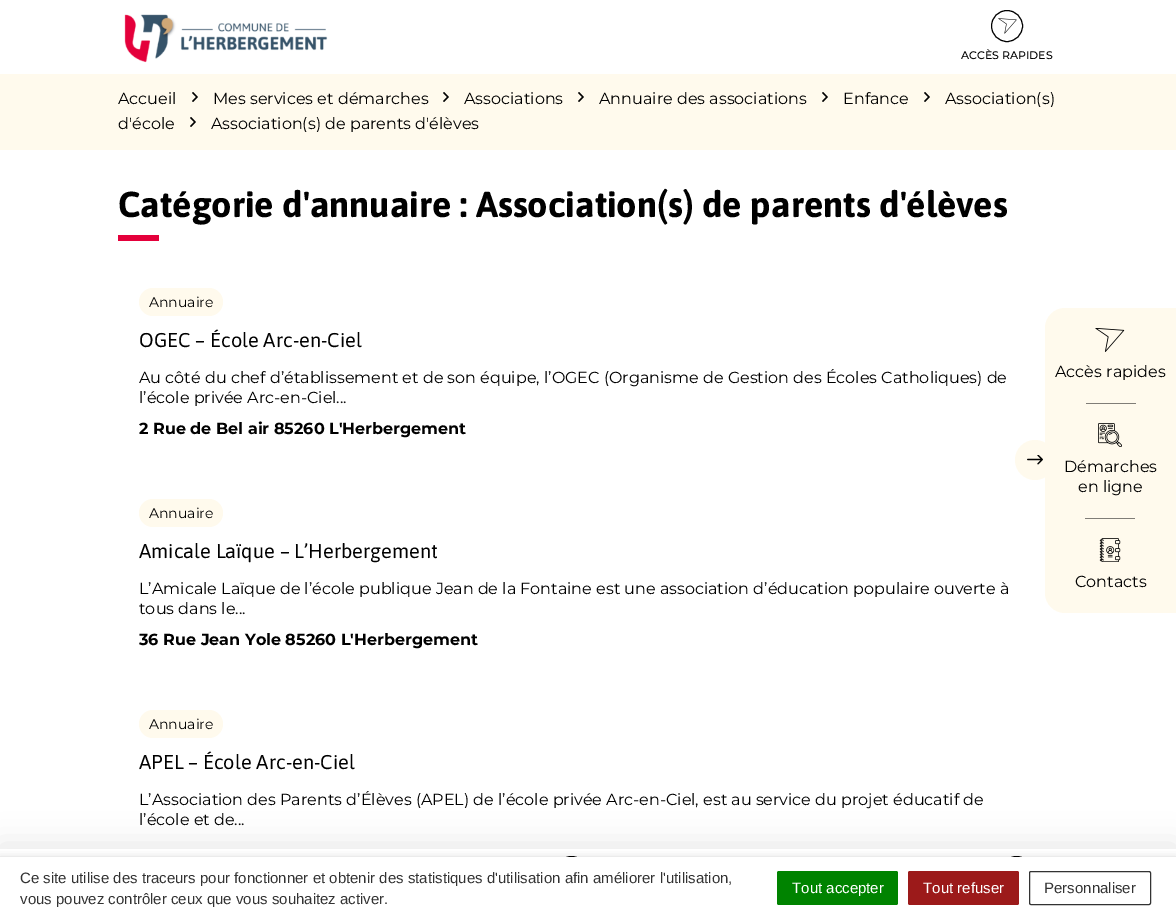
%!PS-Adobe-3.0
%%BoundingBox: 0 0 1176 919
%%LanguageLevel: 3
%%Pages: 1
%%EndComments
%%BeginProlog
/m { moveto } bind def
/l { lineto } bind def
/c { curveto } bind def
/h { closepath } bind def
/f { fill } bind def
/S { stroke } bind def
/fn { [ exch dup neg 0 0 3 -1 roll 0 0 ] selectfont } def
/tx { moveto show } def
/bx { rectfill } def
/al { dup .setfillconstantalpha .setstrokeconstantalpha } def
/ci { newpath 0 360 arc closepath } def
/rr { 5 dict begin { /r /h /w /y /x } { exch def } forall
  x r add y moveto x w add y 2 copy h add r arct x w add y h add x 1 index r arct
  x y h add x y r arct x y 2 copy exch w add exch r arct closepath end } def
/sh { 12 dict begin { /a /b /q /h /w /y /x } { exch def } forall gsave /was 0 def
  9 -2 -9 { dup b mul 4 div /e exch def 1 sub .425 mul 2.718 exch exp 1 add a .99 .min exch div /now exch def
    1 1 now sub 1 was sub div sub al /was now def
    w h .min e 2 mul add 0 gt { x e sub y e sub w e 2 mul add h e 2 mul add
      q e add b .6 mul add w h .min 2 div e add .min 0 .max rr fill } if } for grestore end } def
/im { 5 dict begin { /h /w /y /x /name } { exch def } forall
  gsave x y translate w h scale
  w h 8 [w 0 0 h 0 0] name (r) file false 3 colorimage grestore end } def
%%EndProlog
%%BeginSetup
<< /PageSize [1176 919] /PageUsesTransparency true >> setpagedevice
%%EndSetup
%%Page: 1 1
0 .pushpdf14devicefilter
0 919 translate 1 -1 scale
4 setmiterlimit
1 setgray
0 0 1176 919 bx
(image0.raw) 124 14 204 49 im
0 setgray
1007 26 15.5 ci S
(image1.raw) 998 18 19 16 im
/Montserrat-Medium 11 fn
(ACCÈS RAPIDES) 961 59 tx
0 845 1176 70 0 15 0.1 sh
1 setgray
0 849 1176 8 bx
0 setgray
571.5 873.5 17 ci S
1016.5 873.5 17 ci S
1 0.98 0.929 setrgbcolor
0 74 1176 76 bx
/Montserrat-Regular 16 fn
0 setgray
(Accueil) 118 104 tx
(image2.raw) 924 92 6 10 im
(Association\(s\)) 945 104 tx
(d'école) 118 129 tx
(image2.raw) 192 92 6 10 im
(Mes services et démarches) 213 104 tx
(image2.raw) 443 92 6 10 im
(Associations) 464 104 tx
(image2.raw) 578 92 6 10 im
(Annuaire des associations) 599 104 tx
(image2.raw) 822 92 6 10 im
(Enfance) 843 104 tx
(image2.raw) 190 117 6 10 im
(Association\(s\) de parents d'élèves) 211 129 tx
/Asap-Bold 36 fn
(Catégorie d'annuaire : Association\(s\) de parents d'élèves) 118 217 tx
0.894 0 0.231 setrgbcolor
118 235 41 6 bx
1 0.98 0.929 setrgbcolor
139 288 84 28 14 rr f
/Montserrat-Regular 14 fn
0 setgray
(Annuaire) 149 307 tx
/Asap-Regular 20 fn
(OGEC – École Arc-en-Ciel) 139 347 tx
/Montserrat-Regular 16 fn
(Au côté du chef d’établissement et de son équipe, l’OGEC \(Organisme de Gestion des Écoles Catholiques\) de) 139 383 tx
(l’école privée Arc-en-Ciel...) 139 403 tx
/Montserrat-Bold 16 fn
(2 Rue de Bel air 85260 L'Herbergement) 139 434 tx
1 0.98 0.929 setrgbcolor
139 499 84 28 14 rr f
/Montserrat-Regular 14 fn
0 setgray
(Annuaire) 149 518 tx
/Asap-Regular 20 fn
(Amicale Laïque – L’Herbergement) 139 558 tx
/Montserrat-Regular 16 fn
(L’Amicale Laïque de l’école publique Jean de la Fontaine est une association d’éducation populaire ouverte à) 139 594 tx
(tous dans le...) 139 614 tx
/Montserrat-Bold 16 fn
(36 Rue Jean Yole 85260 L'Herbergement) 139 645 tx
1 0.98 0.929 setrgbcolor
139 710 84 28 14 rr f
/Montserrat-Regular 14 fn
0 setgray
(Annuaire) 149 729 tx
/Asap-Regular 20 fn
(APEL – École Arc-en-Ciel) 139 769 tx
/Montserrat-Regular 16 fn
(L’Association des Parents d’Élèves \(APEL\) de l’école privée Arc-en-Ciel, est au service du projet éducatif de) 139 805 tx
(l’école et de...) 139 825 tx
1 0.98 0.929 setrgbcolor
1065 308 m 1176 308 l 1176 613 l 1065 613 l 1054 613 1045 604 1045 593 c 1045 328 l 1045 317 1054 308 1065 308 c h f
1035 460 20 ci f
(image3.raw) 1027 455 16 10 im
(image4.raw) 1095 328 30 24 im
0 setgray
(Accès rapides) 1055 377 tx
0.502 0.49 0.467 setrgbcolor
1086 403 50 1 bx
(image5.raw) 1098 423 24 24 im
0 setgray
(Démarches) 1064 472 tx
(en ligne) 1078 492 tx
0.502 0.49 0.467 setrgbcolor
1085 518 50 1 bx
(image6.raw) 1099 538 22 24 im
0 setgray
(Contacts) 1075 587 tx
0 862 1176 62 0 5 0.5 sh
1 setgray
0 857 1176 62 bx
/LiberationSans-Regular 15 fn
0.2 setgray
(Ce site utilise des traceurs pour fonctionner et obtenir des statistiques d'utilisation afin améliorer l'utilisation,) 20 883 tx
(vous pouvez contrôler ceux que vous souhaitez activer.) 20 904 tx
0 0.514 0 setrgbcolor
777 871 121 34 2 rr f
1 setgray
(Tout accepter) 792 893 tx
0.612 0.102 0.102 setrgbcolor
908 871 111 34 2 rr f
1 setgray
(Tout refuser) 923 893 tx
0.2 setgray
1029.5 871.5 121 33 1.5 rr S
(Personnaliser) 1044 893 tx
.poppdf14devicefilter showpage
%%EOF
